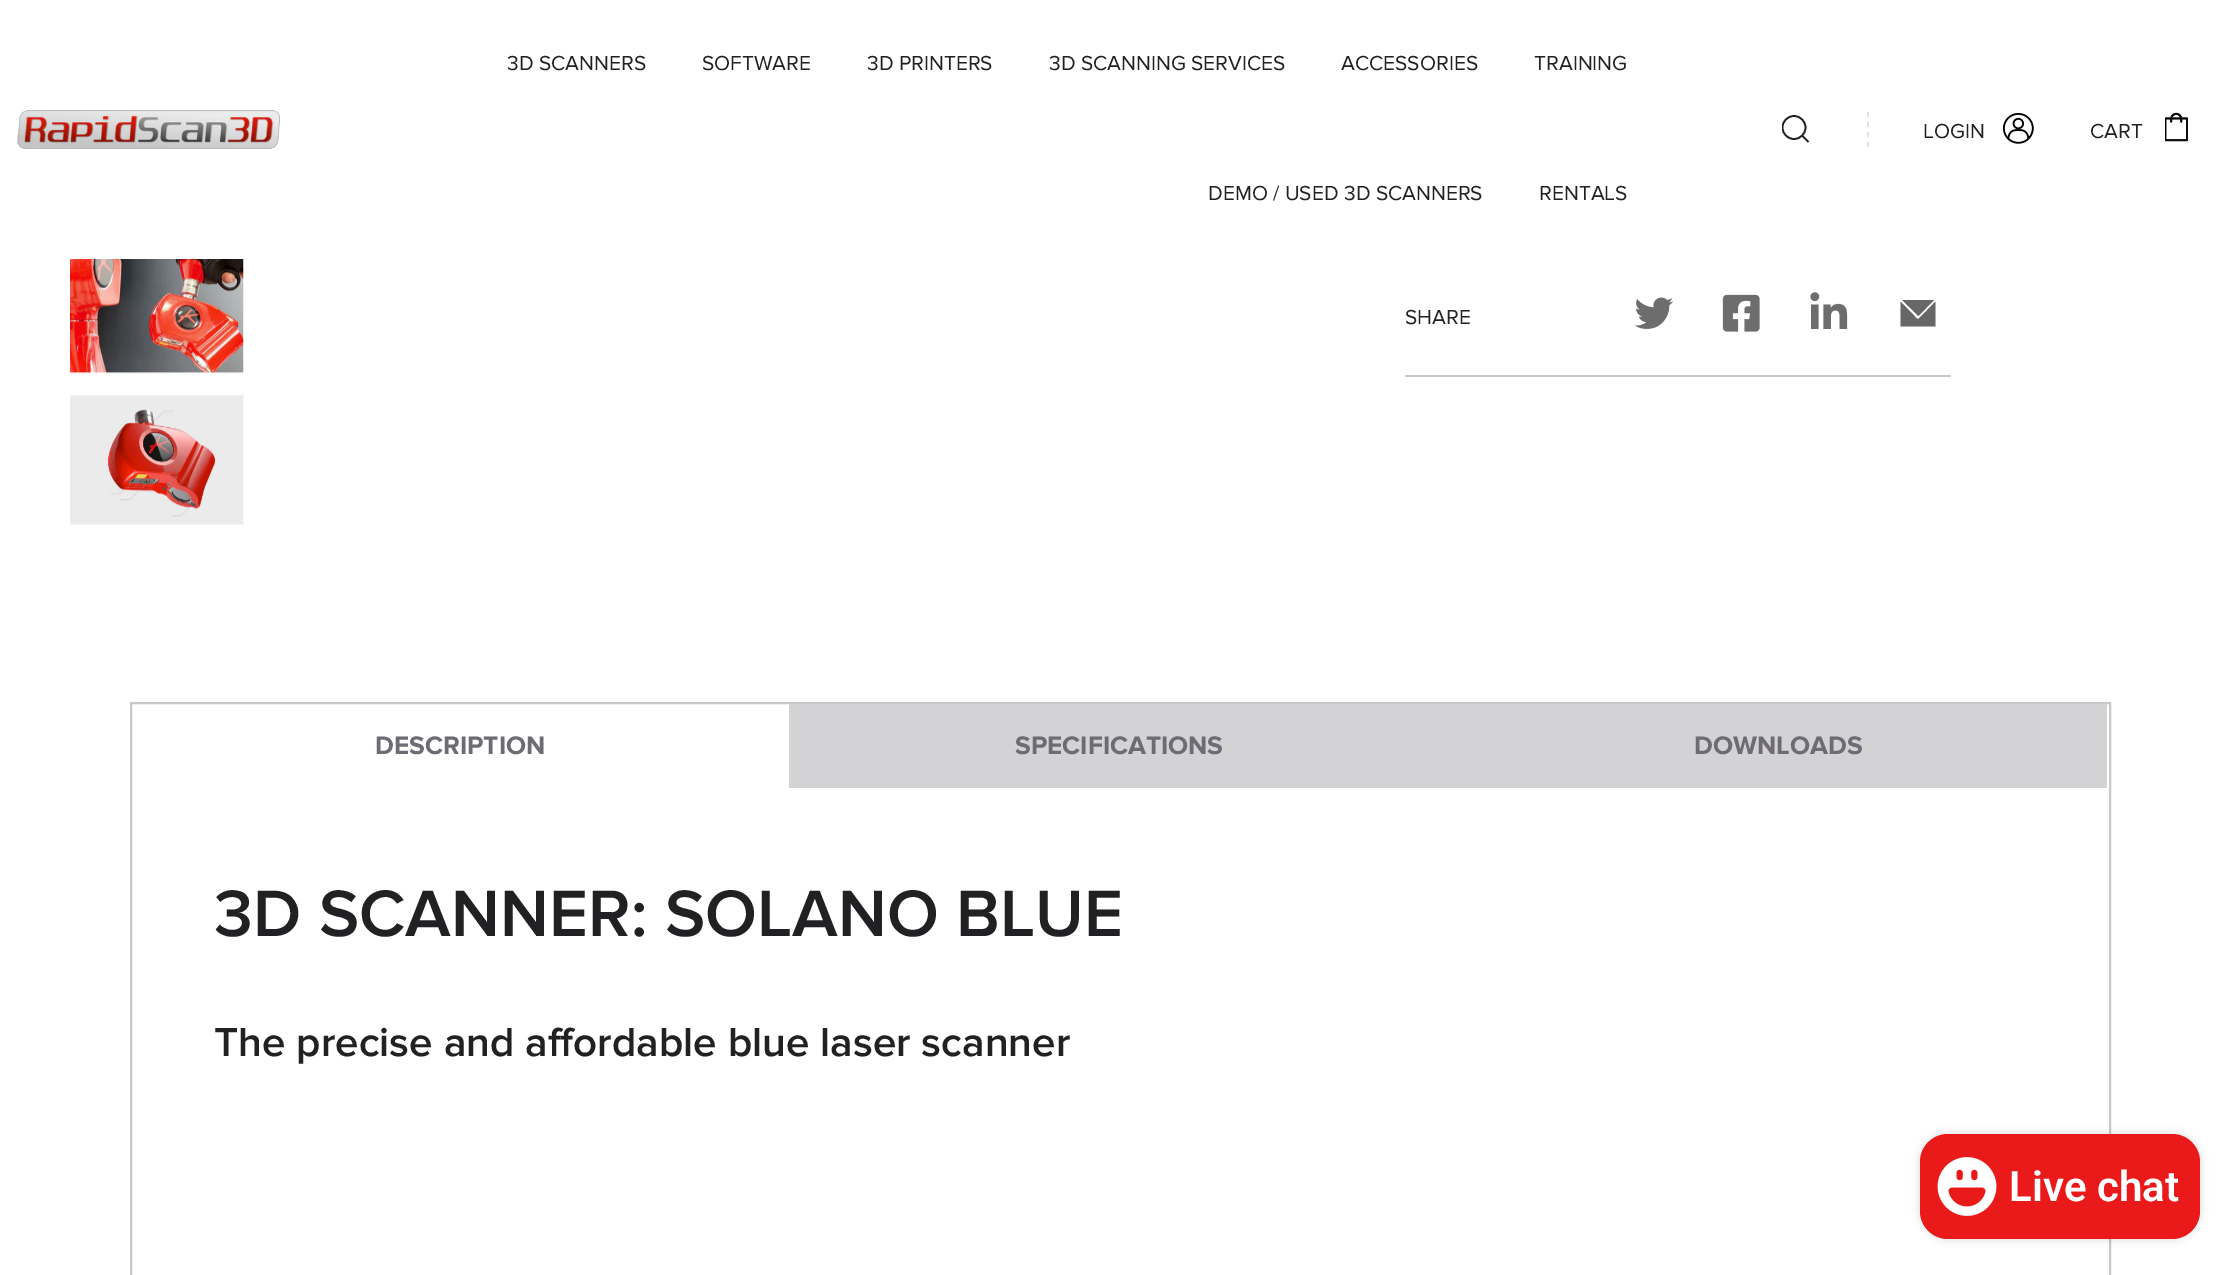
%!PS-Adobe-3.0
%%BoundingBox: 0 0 2237 1275
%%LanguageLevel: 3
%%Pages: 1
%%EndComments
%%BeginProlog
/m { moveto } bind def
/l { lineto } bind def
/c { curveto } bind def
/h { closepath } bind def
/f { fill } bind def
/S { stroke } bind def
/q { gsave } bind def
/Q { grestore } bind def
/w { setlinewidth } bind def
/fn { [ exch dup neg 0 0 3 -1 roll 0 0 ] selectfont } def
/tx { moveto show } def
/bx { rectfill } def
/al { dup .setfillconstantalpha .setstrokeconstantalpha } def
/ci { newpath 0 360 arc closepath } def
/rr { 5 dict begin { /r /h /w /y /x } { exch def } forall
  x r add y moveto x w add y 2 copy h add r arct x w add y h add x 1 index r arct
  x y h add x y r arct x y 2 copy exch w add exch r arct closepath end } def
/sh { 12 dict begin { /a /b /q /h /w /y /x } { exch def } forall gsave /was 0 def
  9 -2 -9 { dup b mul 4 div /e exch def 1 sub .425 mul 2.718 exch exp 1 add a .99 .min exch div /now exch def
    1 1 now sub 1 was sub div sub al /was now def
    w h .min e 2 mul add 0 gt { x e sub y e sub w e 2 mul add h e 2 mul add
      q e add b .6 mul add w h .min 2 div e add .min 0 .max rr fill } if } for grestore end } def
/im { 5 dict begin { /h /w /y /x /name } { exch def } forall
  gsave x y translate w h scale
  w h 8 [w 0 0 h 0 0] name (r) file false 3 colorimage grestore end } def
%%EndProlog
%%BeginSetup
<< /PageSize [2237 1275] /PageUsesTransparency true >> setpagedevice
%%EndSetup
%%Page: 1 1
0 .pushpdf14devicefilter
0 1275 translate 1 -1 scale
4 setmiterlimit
1 setgray
0 0 2237 1275 bx
(image0.raw) 17 110 263 39 im
/ProximaNova-Regular 21 fn
0.129 0.125 0.137 setrgbcolor
(3D SCANNERS) 507 70 tx
(SOFTWARE) 702 70 tx
(3D PRINTERS) 867 70 tx
(3D SCANNING SERVICES) 1049 70 tx
(ACCESSORIES) 1341 70 tx
(TRAINING) 1534 70 tx
(DEMO / USED 3D SCANNERS) 1208 200 tx
(RENTALS) 1539 200 tx
0.886 0.882 0.89 setrgbcolor
1.8 w
[5.25 4.67] 0 setdash
1868 112 m 1868 147 l S
q
1782 112 28 35 rectclip
0.129 0.125 0.137 setrgbcolor
1.7 w
[] 0 setdash
1794 127.5 11.5 ci S
Q
0.129 0.125 0.137 setrgbcolor
1.7 w
[] 0 setdash
1802 135.5 m 1808.5 142 l S
(LOGIN) 1923 138 tx
(image1.raw) 2002 112 32 32 im
(CART) 2090 138 tx
(image2.raw) 2165 112 23 30 im
(image3.raw) 70 259 174 115 im
(image4.raw) 70 395 174 130 im
0.784 setgray
1405 375 546 2 bx
0.129 0.125 0.137 setrgbcolor
(SHARE) 1405 324 tx
(image5.raw) 1635 297 39 32 im
(image6.raw) 1722 294 38 38 im
(image7.raw) 1810 292 38 37 im
0.404 setgray
1919 318.5 m 1917.5 320.5 1914.5 316 1914.5 316 c 1900.5 301.5 l 1900.5 326.5 l 1935.5 326.5 l 1935.5 301.5 l h f
1934 300 m 1902 300 l 1918.5 316 l h f
0.784 setgray
2 w
131 703 1979 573 rectstroke
/ProximaNova-Bold 26.25 fn
0.435 0.42 0.455 setrgbcolor
(DESCRIPTION) 375 754 tx
0.827 0.824 0.835 setrgbcolor
789 704 1318 84 bx
0.435 0.42 0.455 setrgbcolor
(SPECIFICATIONS) 1015 754 tx
(DOWNLOADS) 1694 754 tx
/ProximaNova-SemiBold 67.9 fn
0.129 0.125 0.137 setrgbcolor
(3D SCANNER: SOLANO BLUE) 214 936 tx
/ProximaNova-SemiBold 42 fn
(The precise and affordable blue laser scanner) 214 1056 tx
0 setgray
1920 1134 280 105 28 4.5 0.15 sh
0.918 0.102 0.102 setrgbcolor
1920 1134 280 105 28 rr f
(image8.raw) 1937 1157 60 59 im
/Roboto-SemiBold 42 fn
1 setgray
(Live chat) 2009 1201 tx
.poppdf14devicefilter showpage
%%EOF
